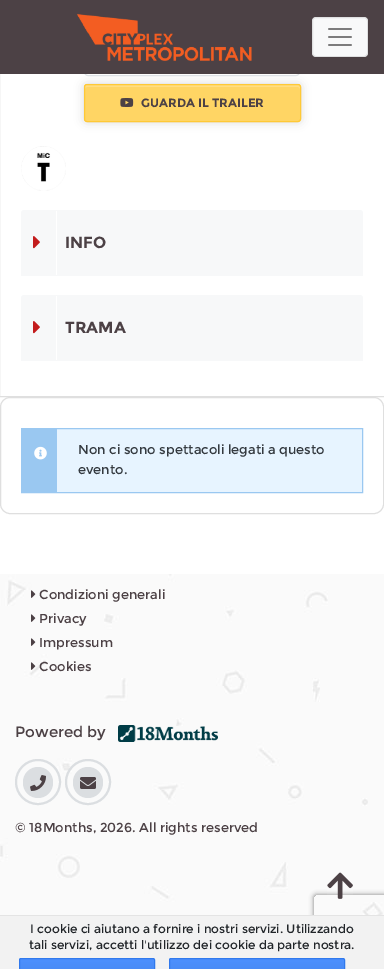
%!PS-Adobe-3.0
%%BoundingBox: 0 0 384 969
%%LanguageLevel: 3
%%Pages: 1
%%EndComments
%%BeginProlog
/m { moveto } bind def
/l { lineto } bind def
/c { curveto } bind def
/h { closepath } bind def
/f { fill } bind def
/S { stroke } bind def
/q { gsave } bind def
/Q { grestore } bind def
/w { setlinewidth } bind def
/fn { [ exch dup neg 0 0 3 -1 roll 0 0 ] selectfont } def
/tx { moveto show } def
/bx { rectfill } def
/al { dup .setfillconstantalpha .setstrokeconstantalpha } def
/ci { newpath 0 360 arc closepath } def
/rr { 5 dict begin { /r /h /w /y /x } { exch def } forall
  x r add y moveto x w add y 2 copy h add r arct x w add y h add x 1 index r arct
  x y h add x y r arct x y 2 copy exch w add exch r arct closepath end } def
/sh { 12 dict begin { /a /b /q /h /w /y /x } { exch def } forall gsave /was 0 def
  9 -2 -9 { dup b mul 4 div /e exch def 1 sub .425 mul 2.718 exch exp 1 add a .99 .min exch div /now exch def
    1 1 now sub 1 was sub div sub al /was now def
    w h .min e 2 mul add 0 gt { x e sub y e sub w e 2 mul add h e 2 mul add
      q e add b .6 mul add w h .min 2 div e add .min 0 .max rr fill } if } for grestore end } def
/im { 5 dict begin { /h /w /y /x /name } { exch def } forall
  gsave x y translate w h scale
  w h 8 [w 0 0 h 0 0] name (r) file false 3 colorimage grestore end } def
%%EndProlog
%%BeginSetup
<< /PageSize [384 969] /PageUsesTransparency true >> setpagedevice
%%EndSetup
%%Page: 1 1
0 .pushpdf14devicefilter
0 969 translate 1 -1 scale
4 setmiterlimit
1 setgray
0 0 384 969 bx
0.875 setgray
-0.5 -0.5 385 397 rectstroke
0 setgray
84 84 217 38 3 5 0.16 sh
0.871 0.886 0.902 setrgbcolor
84.5 -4.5 215 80 3.5 rr S
0.298 0.255 0.271 setrgbcolor
0 0 384 74 bx
(image0.raw) 77 13 175 48 im
0.973 0.976 0.98 setrgbcolor
312 17 56 40 4 rr f
0.1 al
0 setgray
312.5 17.5 55 39 3.5 rr S
1 al
(image1.raw) 328 28 24 18 im
1 0.835 0.392 setrgbcolor
84 84 217 38 3 rr f
1 0.867 0.514 setrgbcolor
87 87 m 298 87 l 299 87 300 88 300 89 c 300 87 l 300 86 299 85 298 85 c 87 85 l 86 85 85 86 85 87 c 85 89 l 85 88 86 87 87 87 c h f
1 0.788 0.212 setrgbcolor
84.5 84.5 216 37 2.5 rr S
(image2.raw) 120 98 14 9 im
/Montserrat-Bold 12 fn
0.298 0.255 0.271 setrgbcolor
(GUARDA IL TRAILER) 141 107 tx
(image3.raw) 21 146 45 45 im
0.969 0.973 0.976 setrgbcolor
24 210 m 360 210 l 361.5 210 363 211.5 363 213 c 363 276 l 21 276 l 21 213 l 21 211.5 22.5 210 24 210 c h f
1 setgray
56 211 1 64 bx
(image4.raw) 33 236 7 13 im
/Montserrat-Bold 16 fn
0.298 0.255 0.271 setrgbcolor
(INFO) 65 248 tx
0.969 0.973 0.976 setrgbcolor
24 295 m 360 295 l 361.5 295 363 296.5 363 298 c 363 361 l 21 361 l 21 298 l 21 296.5 22.5 295 24 295 c h f
1 setgray
56 296 1 64 bx
(image4.raw) 33 321 7 13 im
0.298 0.255 0.271 setrgbcolor
(TRAMA) 65 333 tx
0.875 setgray
0.5 397.5 383 116 9.5 rr S
0.906 0.957 1 setrgbcolor
57 429 305 63 bx
0.604 0.784 0.945 setrgbcolor
21.5 428.5 341 64 rectstroke
22 429 35 63 bx
(image5.raw) 34 446 13 14 im
/Montserrat-Regular 13 fn
0.204 0.227 0.251 setrgbcolor
(Non ci sono spettacoli legati a questo) 78 454 tx
(evento.) 78 474 tx
0.98 setgray
383 574 1 341 bx
(image6.raw) 0 574 383 341 im
(image7.raw) 31 590 5 8 im
0.298 0.255 0.271 setrgbcolor
(Condizioni generali) 39 599 tx
(image7.raw) 31 614 5 8 im
(Privacy) 39 623 tx
(image7.raw) 31 638 5 8 im
(Impressum) 39 647 tx
(image8.raw) 31 662 5 8 im
(Cookies) 39 671 tx
/Montserrat-Regular 15 fn
(Powered by) 15 737 tx
(image9.raw) 118 725 100 17 im
0.859 0.871 0.882 setrgbcolor
23 767 30 31 15 rr f
(image10.raw) 30 775 16 16 im
2 w
38 782 22 ci S
73 767 30 31 15 rr f
(image11.raw) 80 777 16 12 im
88 782 22 ci S
/Montserrat-Regular 13 fn
0.298 0.255 0.271 setrgbcolor
(© 18Months, 2026. All rights reserved) 15 832 tx
q
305 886 m 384 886 l 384 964 l 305 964 l h 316 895 m 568 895 l 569 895 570 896 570 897 c 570 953 l 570 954 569 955 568 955 c 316 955 l 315 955 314 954 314 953 c 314 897 l 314 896 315 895 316 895 c h eoclip newpath
0.502 setgray
314 895 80 60 2 2.5 1 sh
Q
0.949 setgray
0 916 384 53 bx
0.894 setgray
0 915 384 1 bx
/Montserrat-Regular 12 fn
0.129 0.145 0.161 setrgbcolor
(I cookie ci aiutano a fornire i nostri servizi. Utilizzando) 30 933 tx
(tali servizi, accetti l'utilizzo dei cookie da parte nostra.) 29 949 tx
q 19 959 m 155 959 l 155 969 l 19 969 l h clip newpath
<< /ShadingType 2 /ColorSpace /DeviceRGB /Coords [87 959 87 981] /Extend [true true] /Function << /FunctionType 2 /Domain [0 1] /C0 [0.302 0.565 0.996] /C1 [0.278 0.529 0.929] /N 1 >> >> shfill Q
0.188 0.475 0.929 setrgbcolor
1 w
19.5 958.5 135 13 1.5 rr S
q 169 959 m 345 959 l 345 969 l 169 969 l h clip newpath
<< /ShadingType 2 /ColorSpace /DeviceRGB /Coords [257 959 257 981] /Extend [true true] /Function << /FunctionType 2 /Domain [0 1] /C0 [0.302 0.565 0.996] /C1 [0.278 0.529 0.929] /N 1 >> >> shfill Q
169.5 958.5 175 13 1.5 rr S
(image12.raw) 327 872 26 27 im
.poppdf14devicefilter showpage
%%EOF
